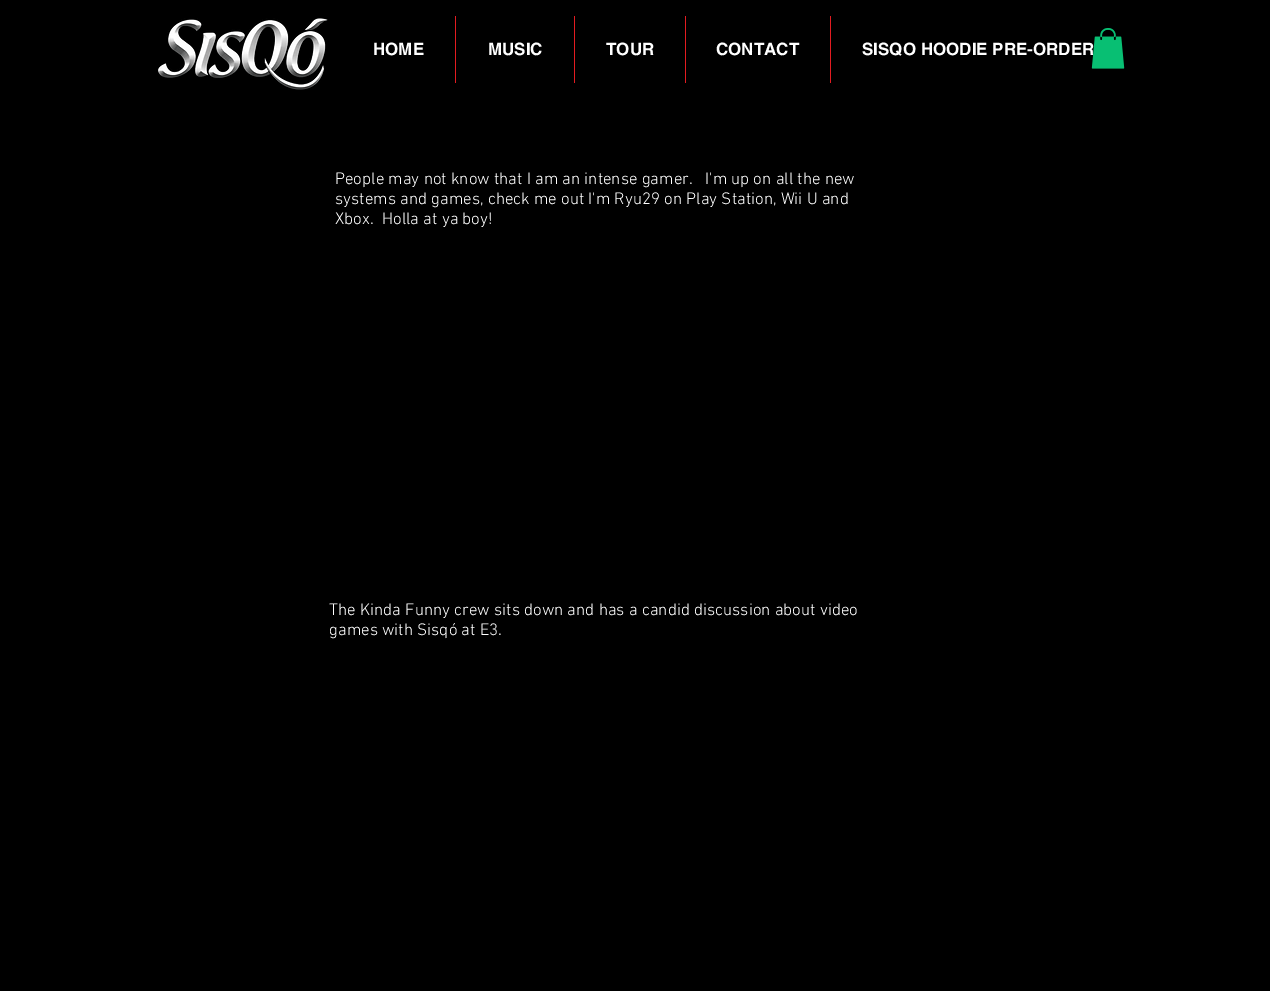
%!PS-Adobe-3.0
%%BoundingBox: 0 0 1270 991
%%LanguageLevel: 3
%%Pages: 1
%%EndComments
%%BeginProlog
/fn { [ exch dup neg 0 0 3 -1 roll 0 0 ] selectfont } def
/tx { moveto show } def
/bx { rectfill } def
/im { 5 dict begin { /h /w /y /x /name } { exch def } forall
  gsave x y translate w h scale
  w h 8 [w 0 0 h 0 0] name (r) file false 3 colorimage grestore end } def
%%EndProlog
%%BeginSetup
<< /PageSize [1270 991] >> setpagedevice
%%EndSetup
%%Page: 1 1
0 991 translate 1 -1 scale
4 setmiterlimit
0 setgray
0 0 1270 991 bx
(image0.raw) 158 18 170 72 im
/helvetica-Bold 17 fn
1 setgray
(HOME) 373 55 tx
0.886 0.11 0.129 setrgbcolor
455 16 1 67 bx
1 setgray
(MUSIC) 488 55 tx
0.886 0.11 0.129 setrgbcolor
574 16 1 67 bx
1 setgray
(TOUR) 606 55 tx
0.886 0.11 0.129 setrgbcolor
685 16 1 67 bx
1 setgray
(CONTACT) 716 55 tx
0.886 0.11 0.129 setrgbcolor
830 16 1 67 bx
1 setgray
(SISQO HOODIE PRE-ORDER) 862 55 tx
(image1.raw) 1091 28 34 41 im
/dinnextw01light-Light 17 fn
(People may not know that I am an intense gamer.   I'm up on all the new) 335 184 tx
(systems and games, check me out I'm Ryu29 on Play Station, Wii U and) 335 204 tx
(Xbox.  Holla at ya boy!) 335 224 tx
(The Kinda Funny crew sits down and has a candid discussion about video) 329 615 tx
(games with Sisqó at E3.) 329 635 tx
showpage
%%EOF
